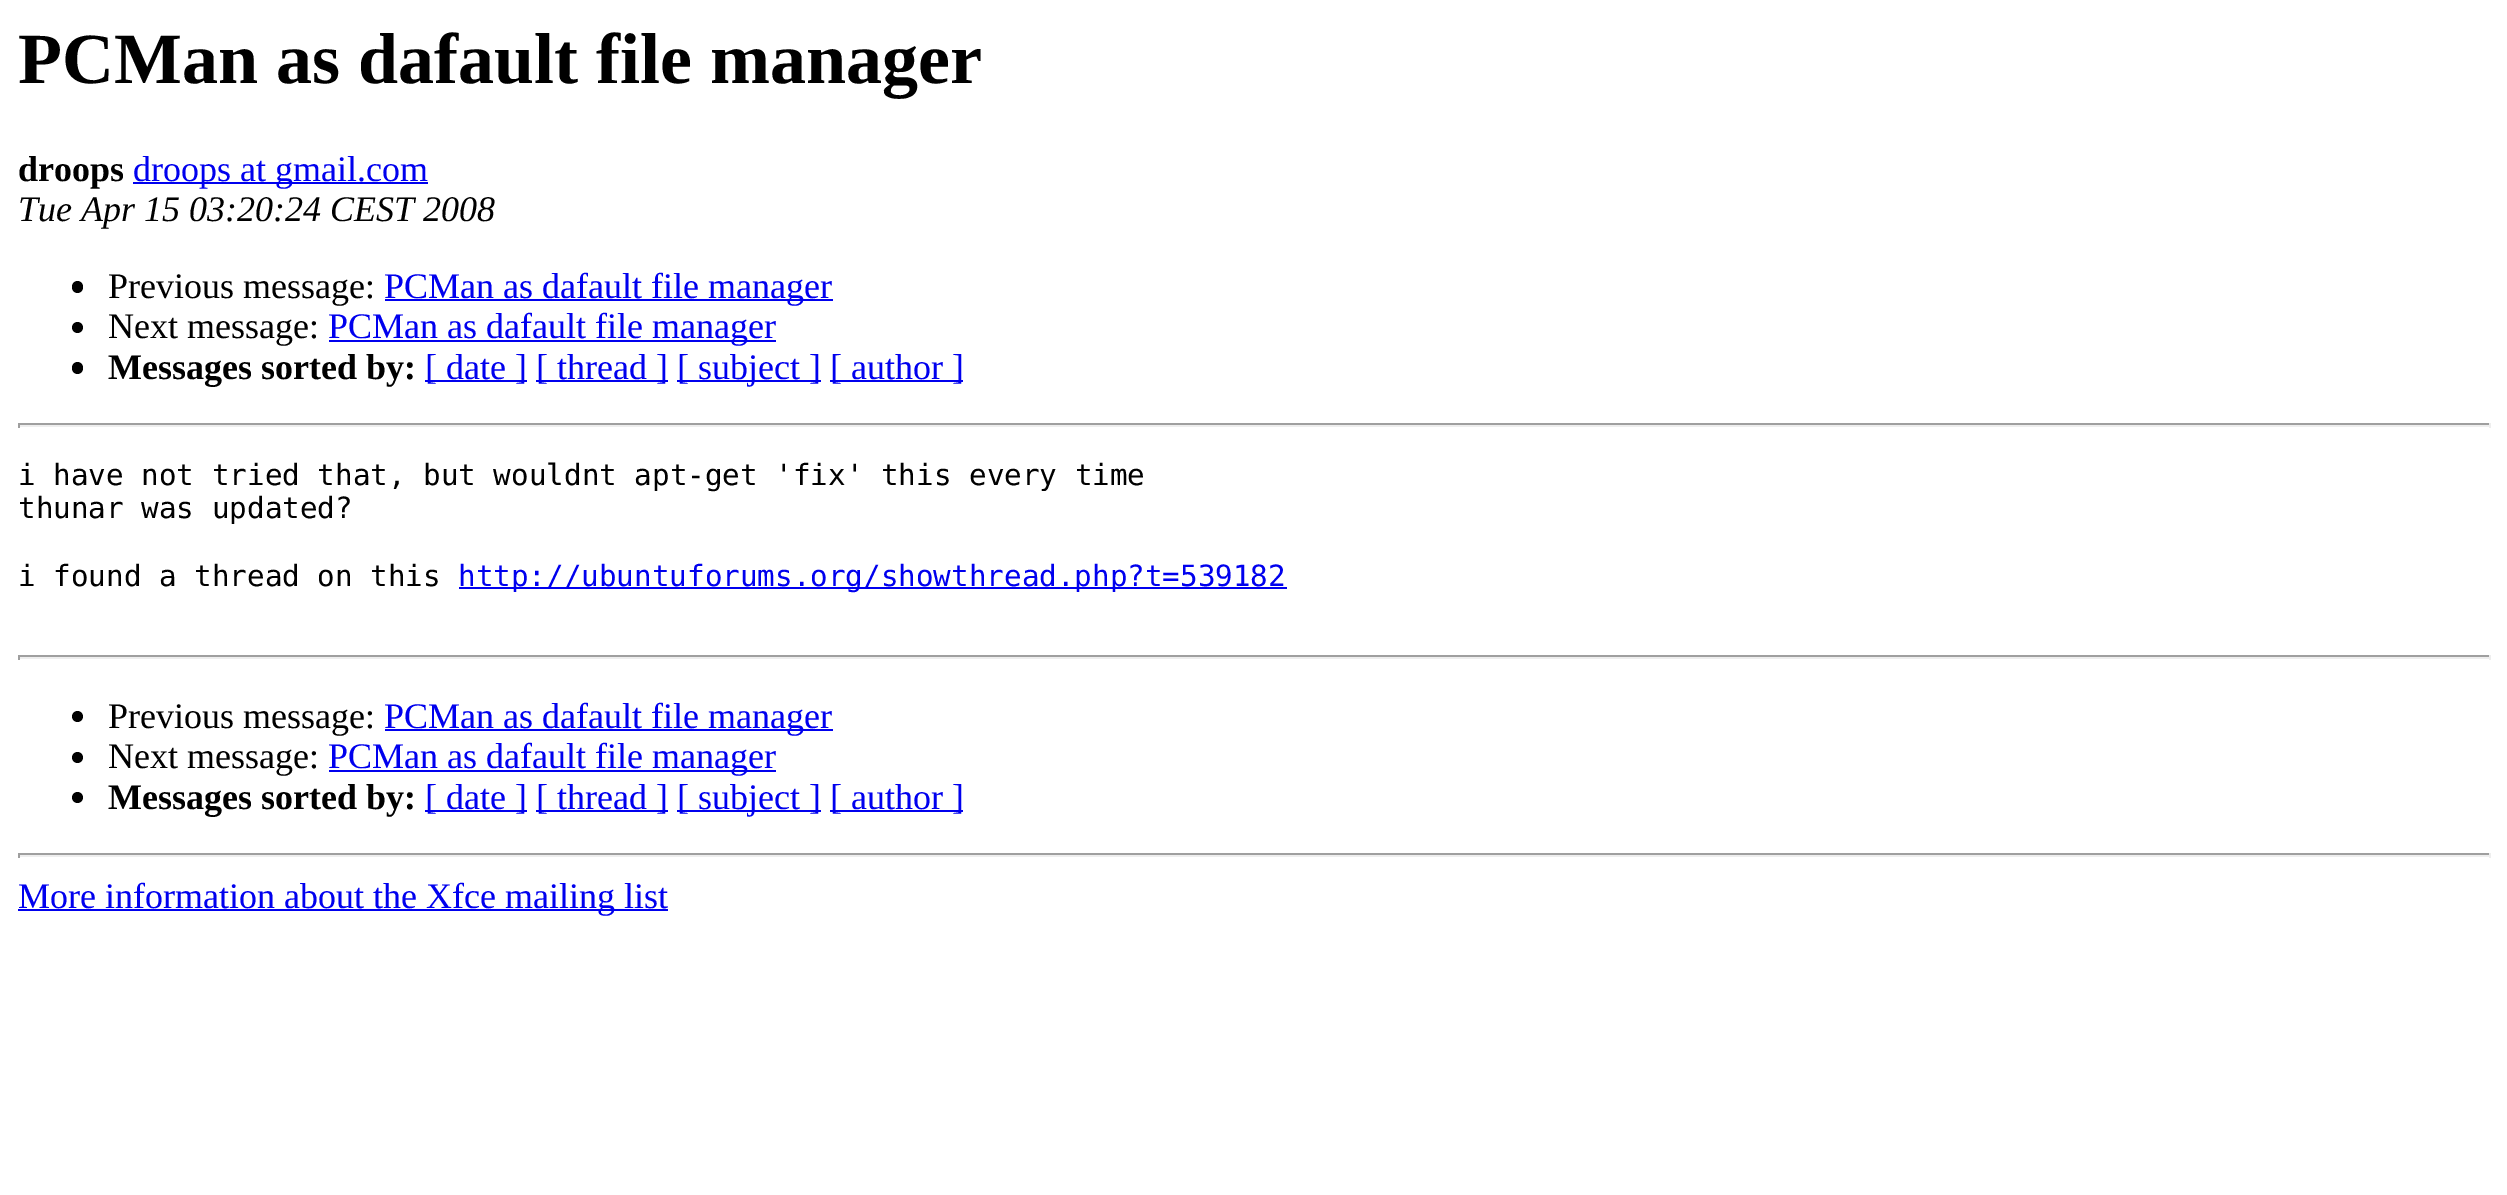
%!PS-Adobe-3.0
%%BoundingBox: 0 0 2507 1195
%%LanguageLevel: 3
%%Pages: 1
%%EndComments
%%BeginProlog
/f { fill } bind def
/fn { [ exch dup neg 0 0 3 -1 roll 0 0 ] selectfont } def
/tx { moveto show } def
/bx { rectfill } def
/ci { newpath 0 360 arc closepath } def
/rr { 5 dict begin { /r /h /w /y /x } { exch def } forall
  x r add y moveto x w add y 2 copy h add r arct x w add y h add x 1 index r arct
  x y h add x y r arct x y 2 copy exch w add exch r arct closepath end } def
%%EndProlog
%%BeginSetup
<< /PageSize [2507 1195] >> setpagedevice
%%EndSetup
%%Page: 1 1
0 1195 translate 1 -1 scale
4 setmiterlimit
1 setgray
0 0 2507 1195 bx
/LiberationSerif-Bold 72 fn
0 setgray
(PCMan as dafault file manager) 18 83 tx
/LiberationSerif-Bold 36 fn
(droops) 18 181 tx
0 0 0.933 setrgbcolor
133 182 295 2 bx
/LiberationSerif-Regular 36 fn
(droops at gmail.com) 133 181 tx
/LiberationSerif-Italic 36 fn
0 setgray
(Tue Apr 15 03:20:24 CEST 2008) 18 221 tx
72 281 11 12 5.5 rr f
/LiberationSerif-Regular 36 fn
(Previous message:) 108 298 tx
0 0 0.933 setrgbcolor
385 299 448 2 bx
(PCMan as dafault file manager) 384 298 tx
0 setgray
77.5 327.5 5.5 ci f
(Next message:) 108 338 tx
0 0 0.933 setrgbcolor
329 340 447 2 bx
(PCMan as dafault file manager) 328 338 tx
0 setgray
72 362 11 12 5.5 rr f
/LiberationSerif-Bold 36 fn
(Messages sorted by:) 108 379 tx
0 0 0.933 setrgbcolor
425 380 102 2 bx
/LiberationSerif-Regular 36 fn
([ date ]) 425 379 tx
536 380 132 2 bx
([ thread ]) 536 379 tx
677 380 144 2 bx
([ subject ]) 677 379 tx
830 380 133 2 bx
([ author ]) 830 379 tx
0.624 setgray
18 423 2473 2 bx
0.933 setgray
2489 423 2 5 bx
18 425 2473 2 bx
0.624 setgray
18 423 2 5 bx
/DejaVuSansMono-Regular 29.25 fn
0 setgray
(i have not tried that, but wouldnt apt-get 'fix' this every time) 18 485 tx
(thunar was updated?) 18 518 tx
(i found a thread on this) 18 586 tx
0 0 0.933 setrgbcolor
459 587 828 2 bx
(http://ubuntuforums.org/showthread.php?t=539182) 458 586 tx
0.624 setgray
18 655 2473 2 bx
0.933 setgray
2489 655 2 5 bx
18 657 2473 2 bx
0.624 setgray
18 655 2 5 bx
0 setgray
77.5 716.5 5.5 ci f
/LiberationSerif-Regular 36 fn
(Previous message:) 108 728 tx
0 0 0.933 setrgbcolor
385 729 448 2 bx
(PCMan as dafault file manager) 384 728 tx
0 setgray
77.5 757.5 5.5 ci f
(Next message:) 108 768 tx
0 0 0.933 setrgbcolor
329 770 447 2 bx
(PCMan as dafault file manager) 328 768 tx
0 setgray
77.5 797.5 5.5 ci f
/LiberationSerif-Bold 36 fn
(Messages sorted by:) 108 809 tx
0 0 0.933 setrgbcolor
425 810 102 2 bx
/LiberationSerif-Regular 36 fn
([ date ]) 425 809 tx
536 810 132 2 bx
([ thread ]) 536 809 tx
677 810 144 2 bx
([ subject ]) 677 809 tx
830 810 133 2 bx
([ author ]) 830 809 tx
0.624 setgray
18 853 2473 2 bx
0.933 setgray
2489 853 2 5 bx
18 855 2473 2 bx
0.624 setgray
18 853 2 5 bx
0 0 0.933 setrgbcolor
18 909 650 2 bx
(More information about the Xfce mailing list) 18 908 tx
showpage
%%EOF
